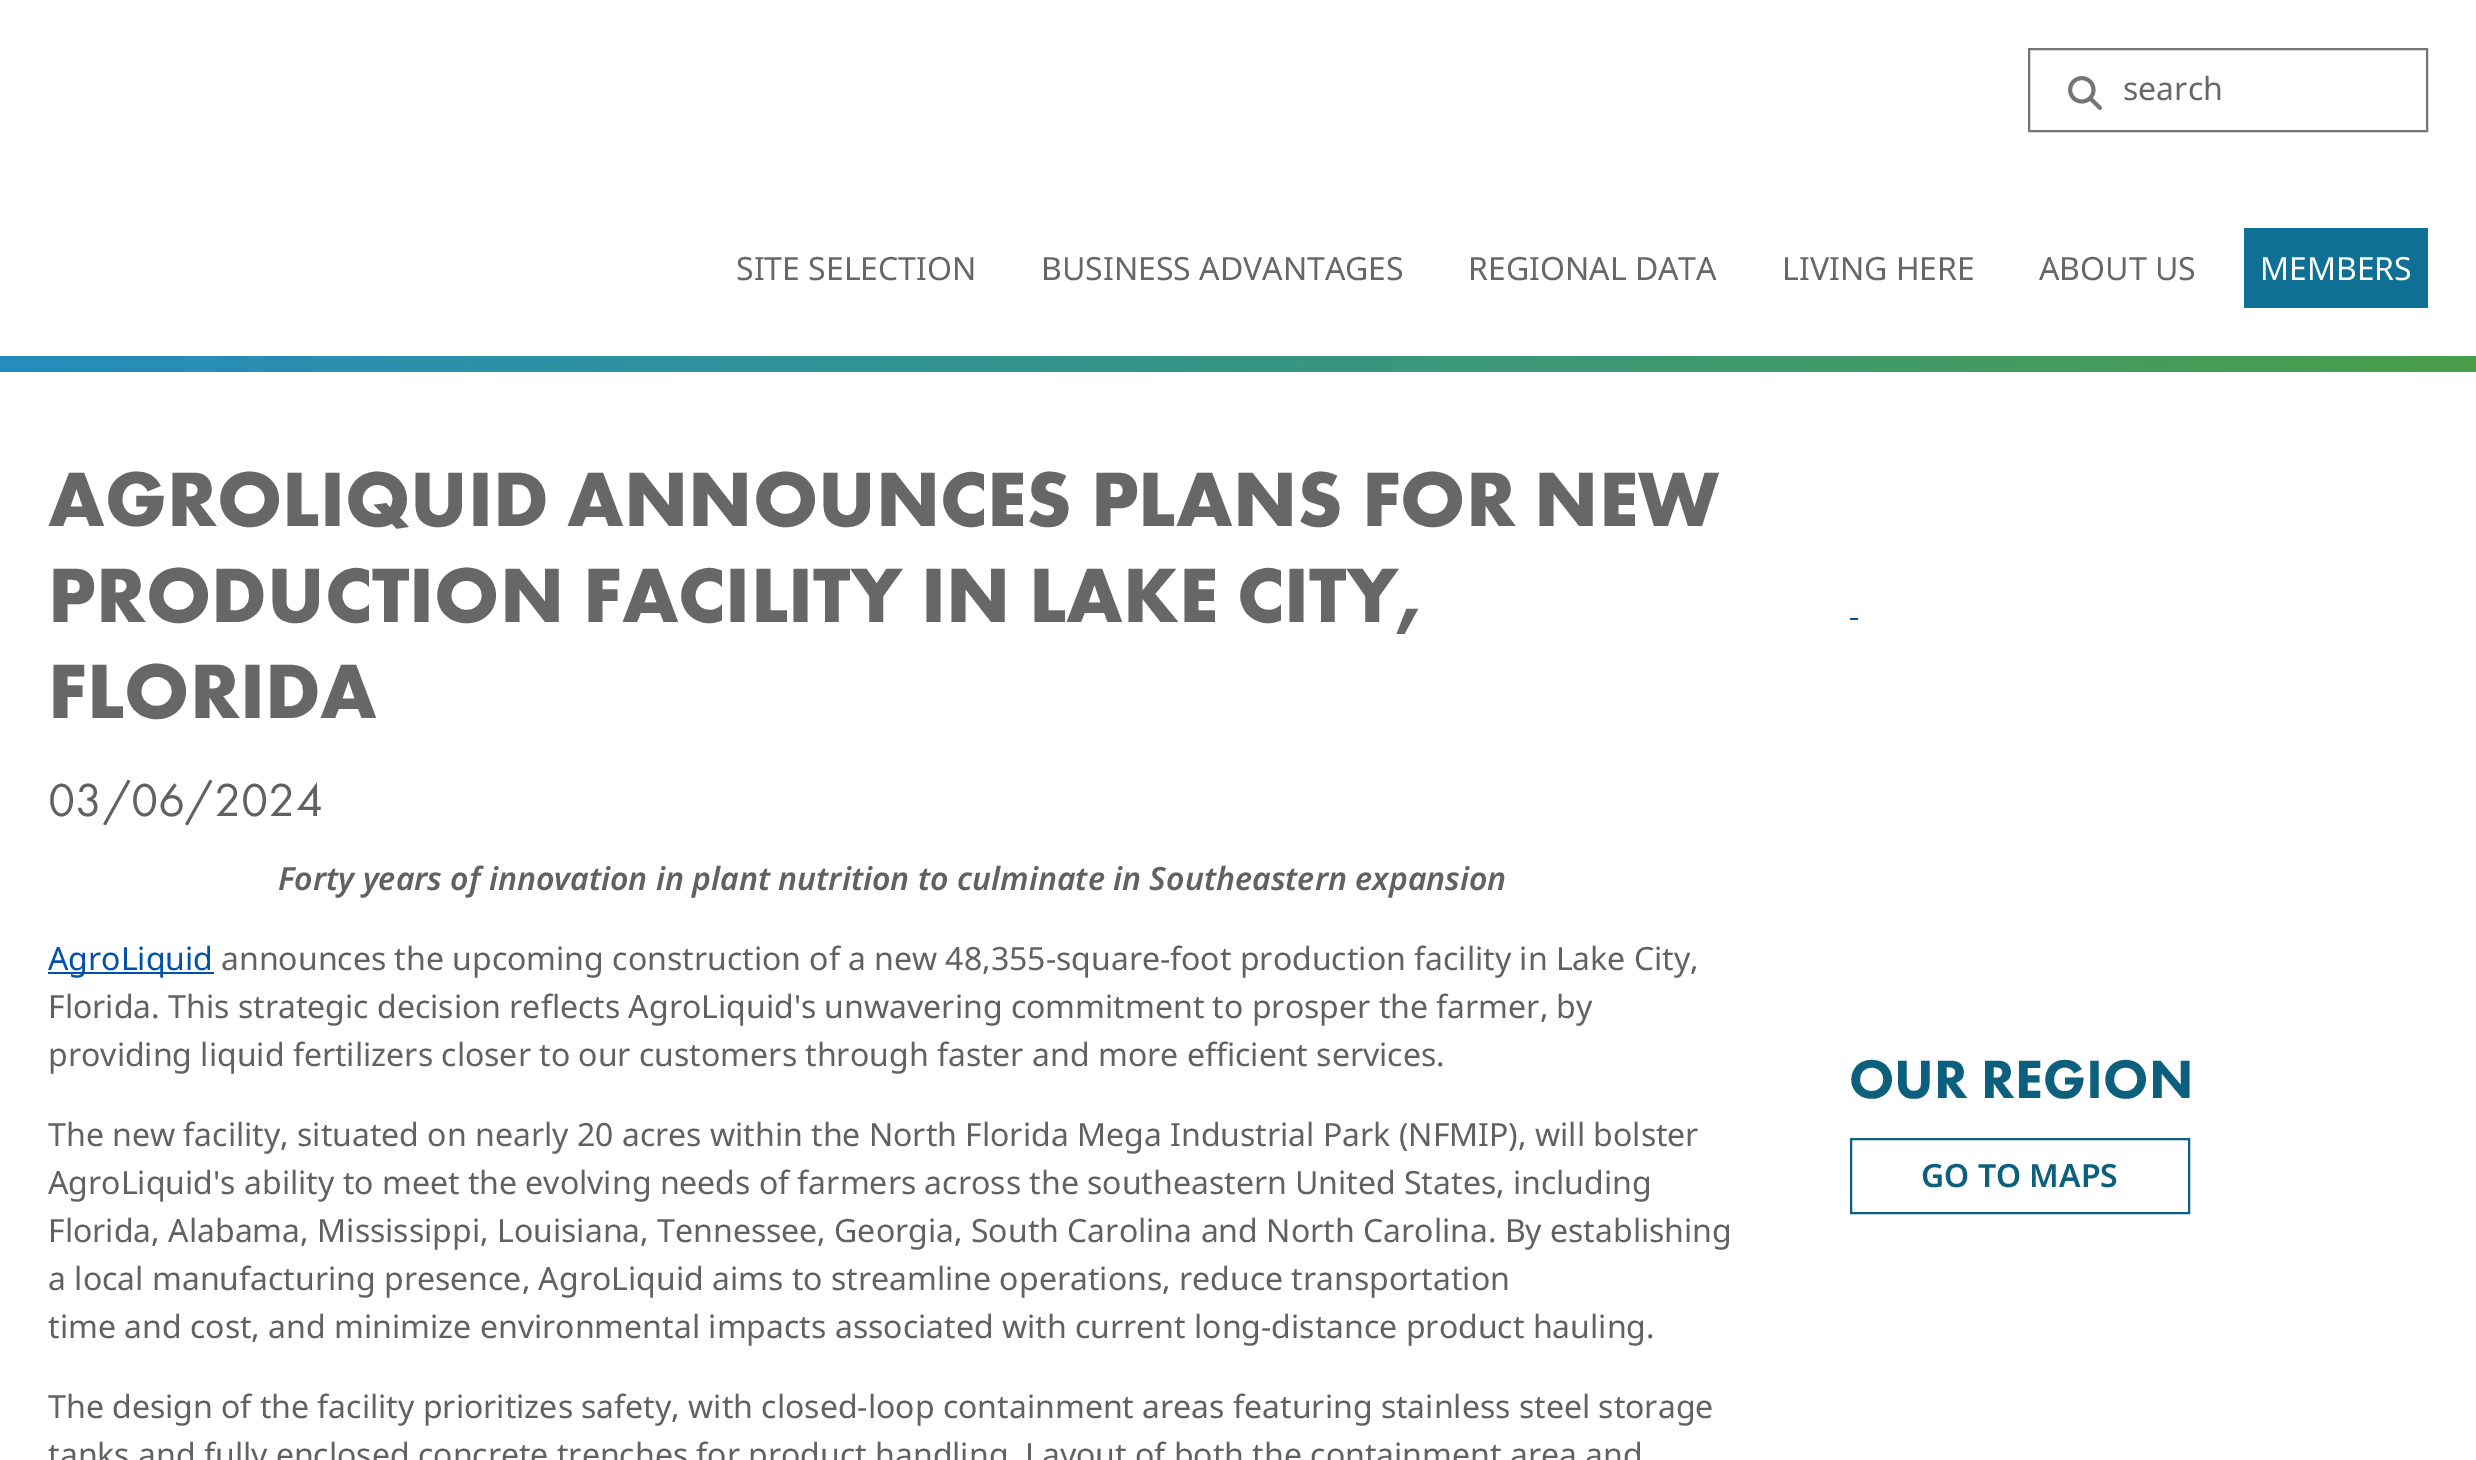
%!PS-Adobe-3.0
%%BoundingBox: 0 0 2476 1460
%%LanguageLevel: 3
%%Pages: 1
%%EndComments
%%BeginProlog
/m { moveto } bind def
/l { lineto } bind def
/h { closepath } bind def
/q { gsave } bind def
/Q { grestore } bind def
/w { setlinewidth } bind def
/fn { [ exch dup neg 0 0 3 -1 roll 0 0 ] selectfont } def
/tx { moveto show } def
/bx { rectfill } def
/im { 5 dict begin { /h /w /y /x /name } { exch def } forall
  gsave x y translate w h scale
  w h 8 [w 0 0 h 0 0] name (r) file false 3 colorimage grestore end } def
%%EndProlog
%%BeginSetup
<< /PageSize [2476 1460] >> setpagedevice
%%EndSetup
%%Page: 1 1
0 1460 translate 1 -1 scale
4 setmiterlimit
1 setgray
0 0 2476 1460 bx
0.459 setgray
2 w
2029 49 398 82 rectstroke
(image0.raw) 2068 76 34 34 im
/NotoSans-Regular 32 fn
0.404 setgray
(search) 2123 100 tx
(SITE SELECTION) 736 280 tx
(BUSINESS ADVANTAGES) 1041 280 tx
(REGIONAL DATA) 1468 280 tx
(LIVING HERE) 1782 280 tx
(ABOUT US) 2039 280 tx
0.055 0.439 0.584 setrgbcolor
2244 228 184 80 bx
1 setgray
(MEMBERS) 2260 280 tx
q 0 356 m 2476 356 l 2476 372 l 0 372 l h clip newpath
<< /ShadingType 2 /ColorSpace /DeviceRGB /Coords [0 364 2476 364] /Extend [true true] /Function << /FunctionType 2 /Domain [0 1] /C0 [0.141 0.553 0.745] /C1 [0.29 0.62 0.294] /N 1 >> >> shfill Q
/FuturaPT-Bold 80 fn
0.404 setgray
(AGROLIQUID ANNOUNCES PLANS FOR NEW) 48 526 tx
(PRODUCTION FACILITY IN LAKE CITY,) 48 622 tx
(FLORIDA) 48 718 tx
/FuturaPT-Regular 48 fn
0.38 setgray
(03/06/2024) 48 816 tx
/NotoSans-SemiBoldItalic 32 fn
(Forty years of innovation in plant nutrition to culminate in Southeastern expansion) 278 890 tx
0 0.318 0.659 setrgbcolor
48 972 166 2 bx
/NotoSans-Regular 32 fn
(AgroLiquid) 48 970 tx
0.38 setgray
(announces the upcoming construction of a new 48,355-square-foot production facility in Lake City,) 221 970 tx
(Florida. This strategic decision reflects AgroLiquid's unwavering commitment to prosper the farmer, by) 48 1018 tx
(providing liquid fertilizers closer to our customers through faster and more efficient services.) 48 1066 tx
(The new facility, situated on nearly 20 acres within the North Florida Mega Industrial Park \(NFMIP\), will bolster) 48 1146 tx
(AgroLiquid's ability to meet the evolving needs of farmers across the southeastern United States, including) 48 1194 tx
(Florida, Alabama, Mississippi, Louisiana, Tennessee, Georgia, South Carolina and North Carolina. By establishing) 48 1242 tx
(a local manufacturing presence, AgroLiquid aims to streamline operations, reduce transportation) 48 1290 tx
(time and cost, and minimize environmental impacts associated with current long-distance product hauling.) 48 1338 tx
(The design of the facility prioritizes safety, with closed-loop containment areas featuring stainless steel storage) 48 1418 tx
(tanks and fully enclosed concrete trenches for product handling. Layout of both the containment area and) 48 1466 tx
0 0.318 0.659 setrgbcolor
1850 618 8 2 bx
/FuturaPT-Black 56 fn
0.047 0.373 0.49 setrgbcolor
(OUR REGION) 1849 1098 tx
1851 1139 338 74 rectstroke
/NotoSans-SemiBold 32 fn
(GO TO MAPS) 1921 1187 tx
showpage
%%EOF
